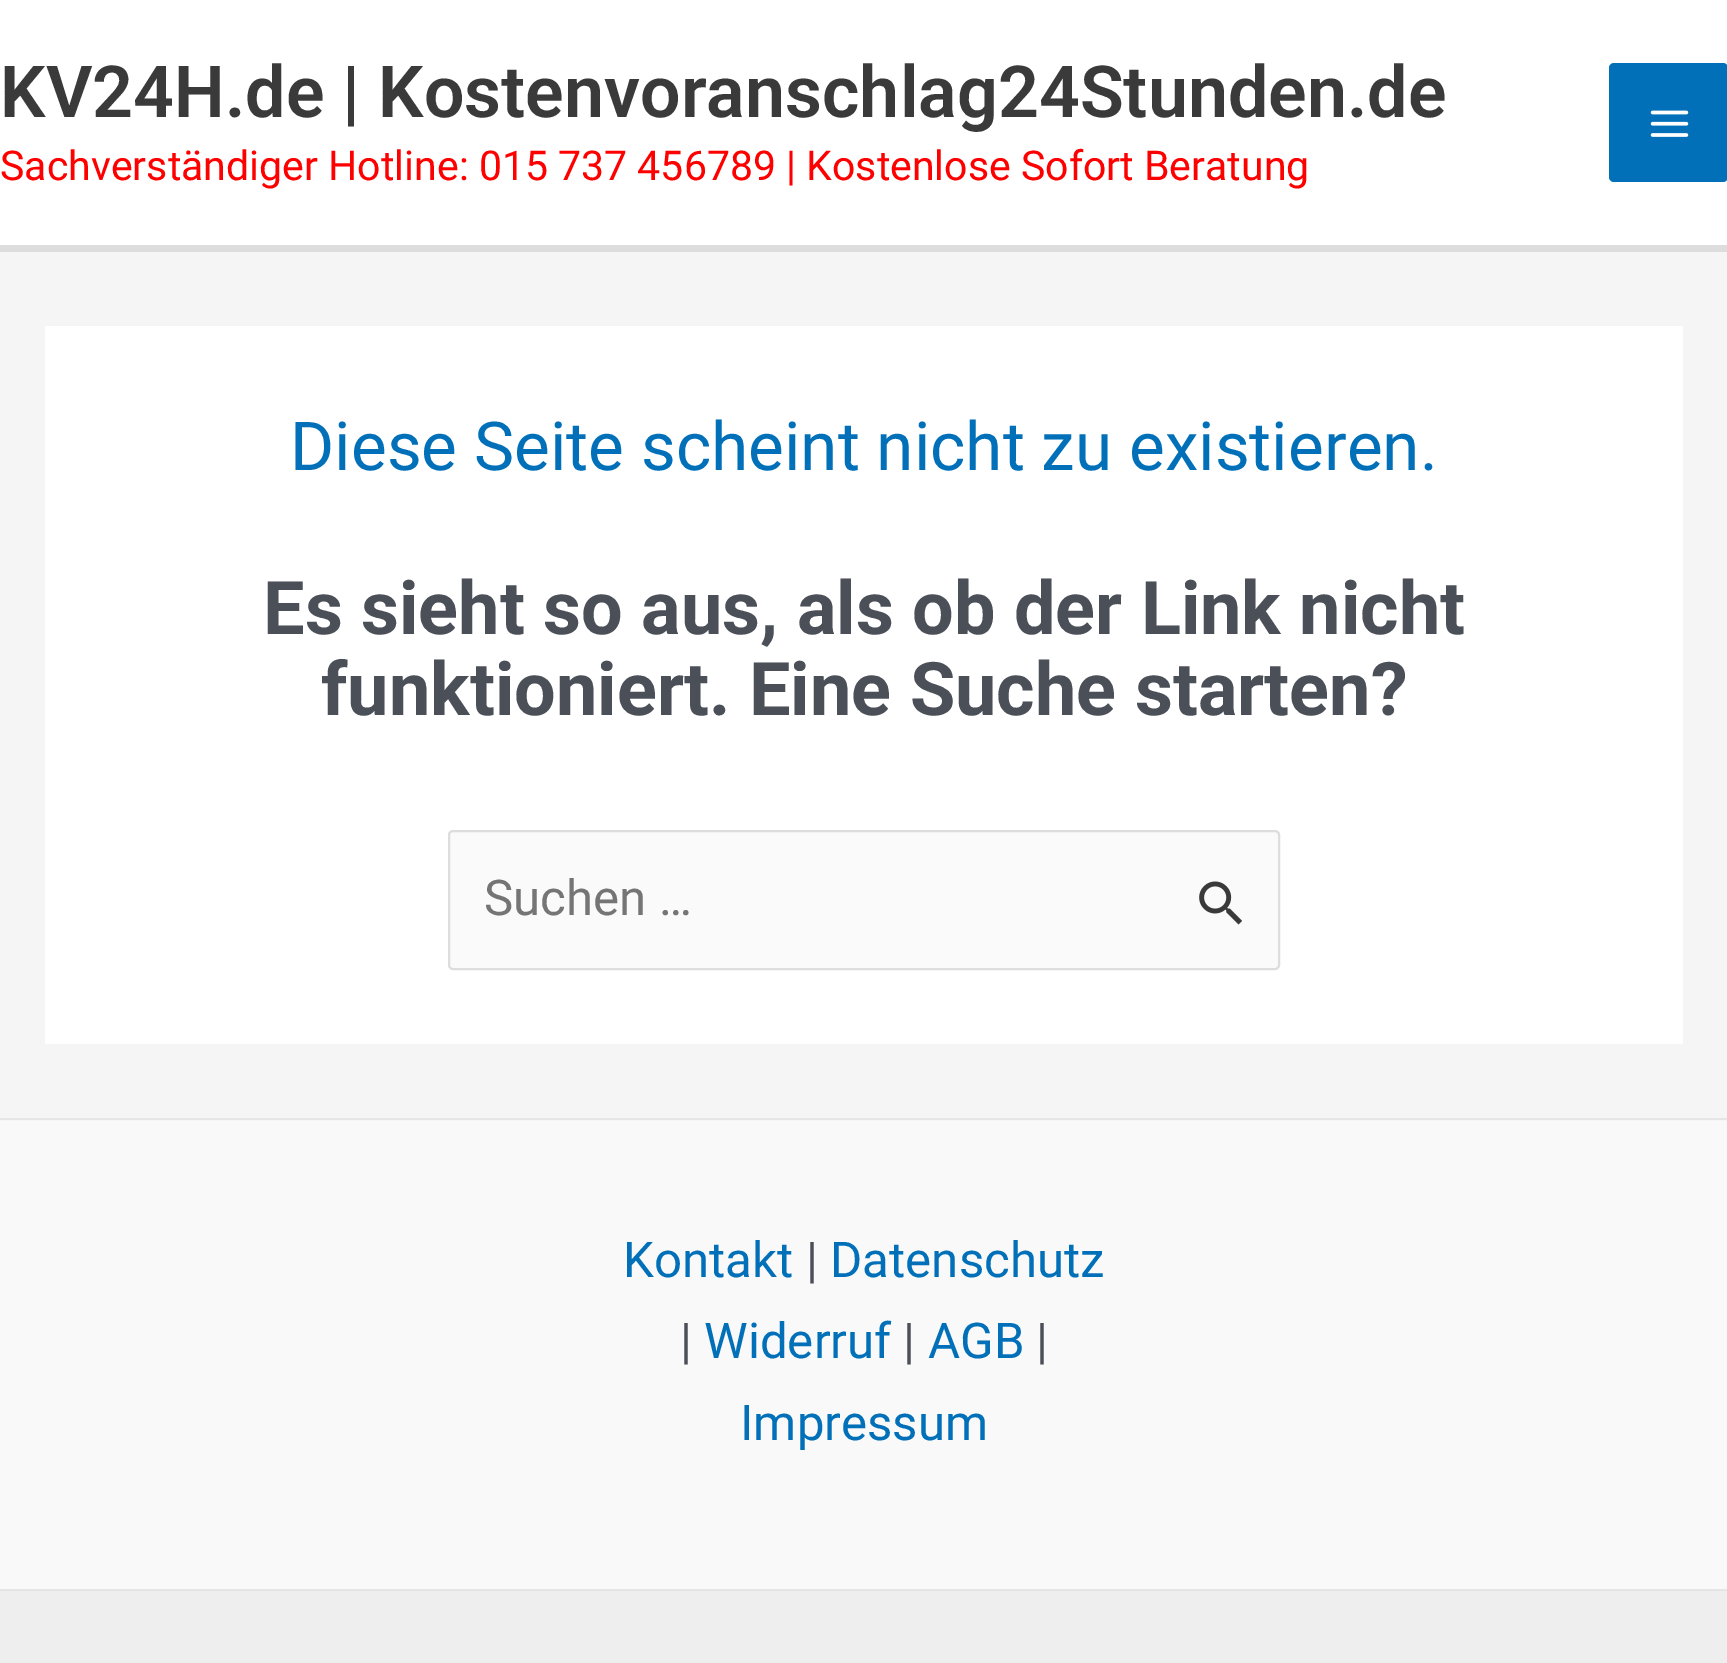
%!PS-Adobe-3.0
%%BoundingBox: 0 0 1727 1663
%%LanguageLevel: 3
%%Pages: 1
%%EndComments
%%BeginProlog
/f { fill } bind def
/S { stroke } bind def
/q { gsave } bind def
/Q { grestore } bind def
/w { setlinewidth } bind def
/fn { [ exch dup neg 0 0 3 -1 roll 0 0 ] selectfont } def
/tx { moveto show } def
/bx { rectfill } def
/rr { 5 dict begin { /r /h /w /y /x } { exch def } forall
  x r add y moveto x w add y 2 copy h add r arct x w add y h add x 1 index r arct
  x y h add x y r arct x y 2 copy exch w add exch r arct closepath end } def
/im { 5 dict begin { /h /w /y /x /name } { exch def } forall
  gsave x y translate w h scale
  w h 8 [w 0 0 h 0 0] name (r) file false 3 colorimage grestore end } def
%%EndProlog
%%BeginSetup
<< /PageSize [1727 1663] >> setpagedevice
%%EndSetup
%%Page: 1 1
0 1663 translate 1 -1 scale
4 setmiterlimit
0.961 setgray
0 0 1727 1663 bx
1 setgray
0 0 1727 245 bx
0.867 setgray
0 245 1727 7 bx
/Roboto-SemiBold 71.8 fn
0.227 setgray
(KV24H.de | Kostenvoranschlag24Stunden.de) 0 117 tx
/Roboto-Regular 41.05 fn
1 0 0 setrgbcolor
(Sachverständiger Hotline: 015 737 456789 | Kostenlose Sofort Beratung) 0 180 tx
0.004 0.439 0.725 setrgbcolor
1609 63 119 119 5 rr f
(image0.raw) 1650 110 39 27 im
1 setgray
45 326 1638 718 bx
/Roboto-Regular 67.5 fn
0.004 0.439 0.725 setrgbcolor
(Diese Seite scheint nicht zu existieren.) 290 470 tx
/Roboto-Bold 73.9 fn
0.294 0.31 0.345 setrgbcolor
(Es sieht so aus, als ob der Link nicht) 263 634 tx
(funktioniert. Eine Suche starten?) 321 715 tx
0.98 setgray
449 831 830 138 4 rr q f Q
0.867 setgray
2 w
S
/Roboto-Regular 49.25 fn
0.459 setgray
(Suchen …) 484 915 tx
(image1.raw) 1199 881 43 44 im
0.976 setgray
0 1121 1727 468 bx
0.898 setgray
0 1118 1727 2 bx
0.004 0.439 0.725 setrgbcolor
(Kontakt) 623 1277 tx
0.294 0.31 0.345 setrgbcolor
(|) 806 1277 tx
0.004 0.439 0.725 setrgbcolor
(Datenschutz) 830 1277 tx
0.294 0.31 0.345 setrgbcolor
(|) 680 1358 tx
0.004 0.439 0.725 setrgbcolor
(Widerruf) 704 1358 tx
0.294 0.31 0.345 setrgbcolor
(|) 903 1358 tx
0.004 0.439 0.725 setrgbcolor
(AGB) 928 1358 tx
0.294 0.31 0.345 setrgbcolor
(|) 1036 1358 tx
0.004 0.439 0.725 setrgbcolor
(Impressum) 740 1440 tx
0.933 setgray
0 1591 1727 72 bx
0.898 setgray
0 1589 1727 2 bx
showpage
%%EOF
